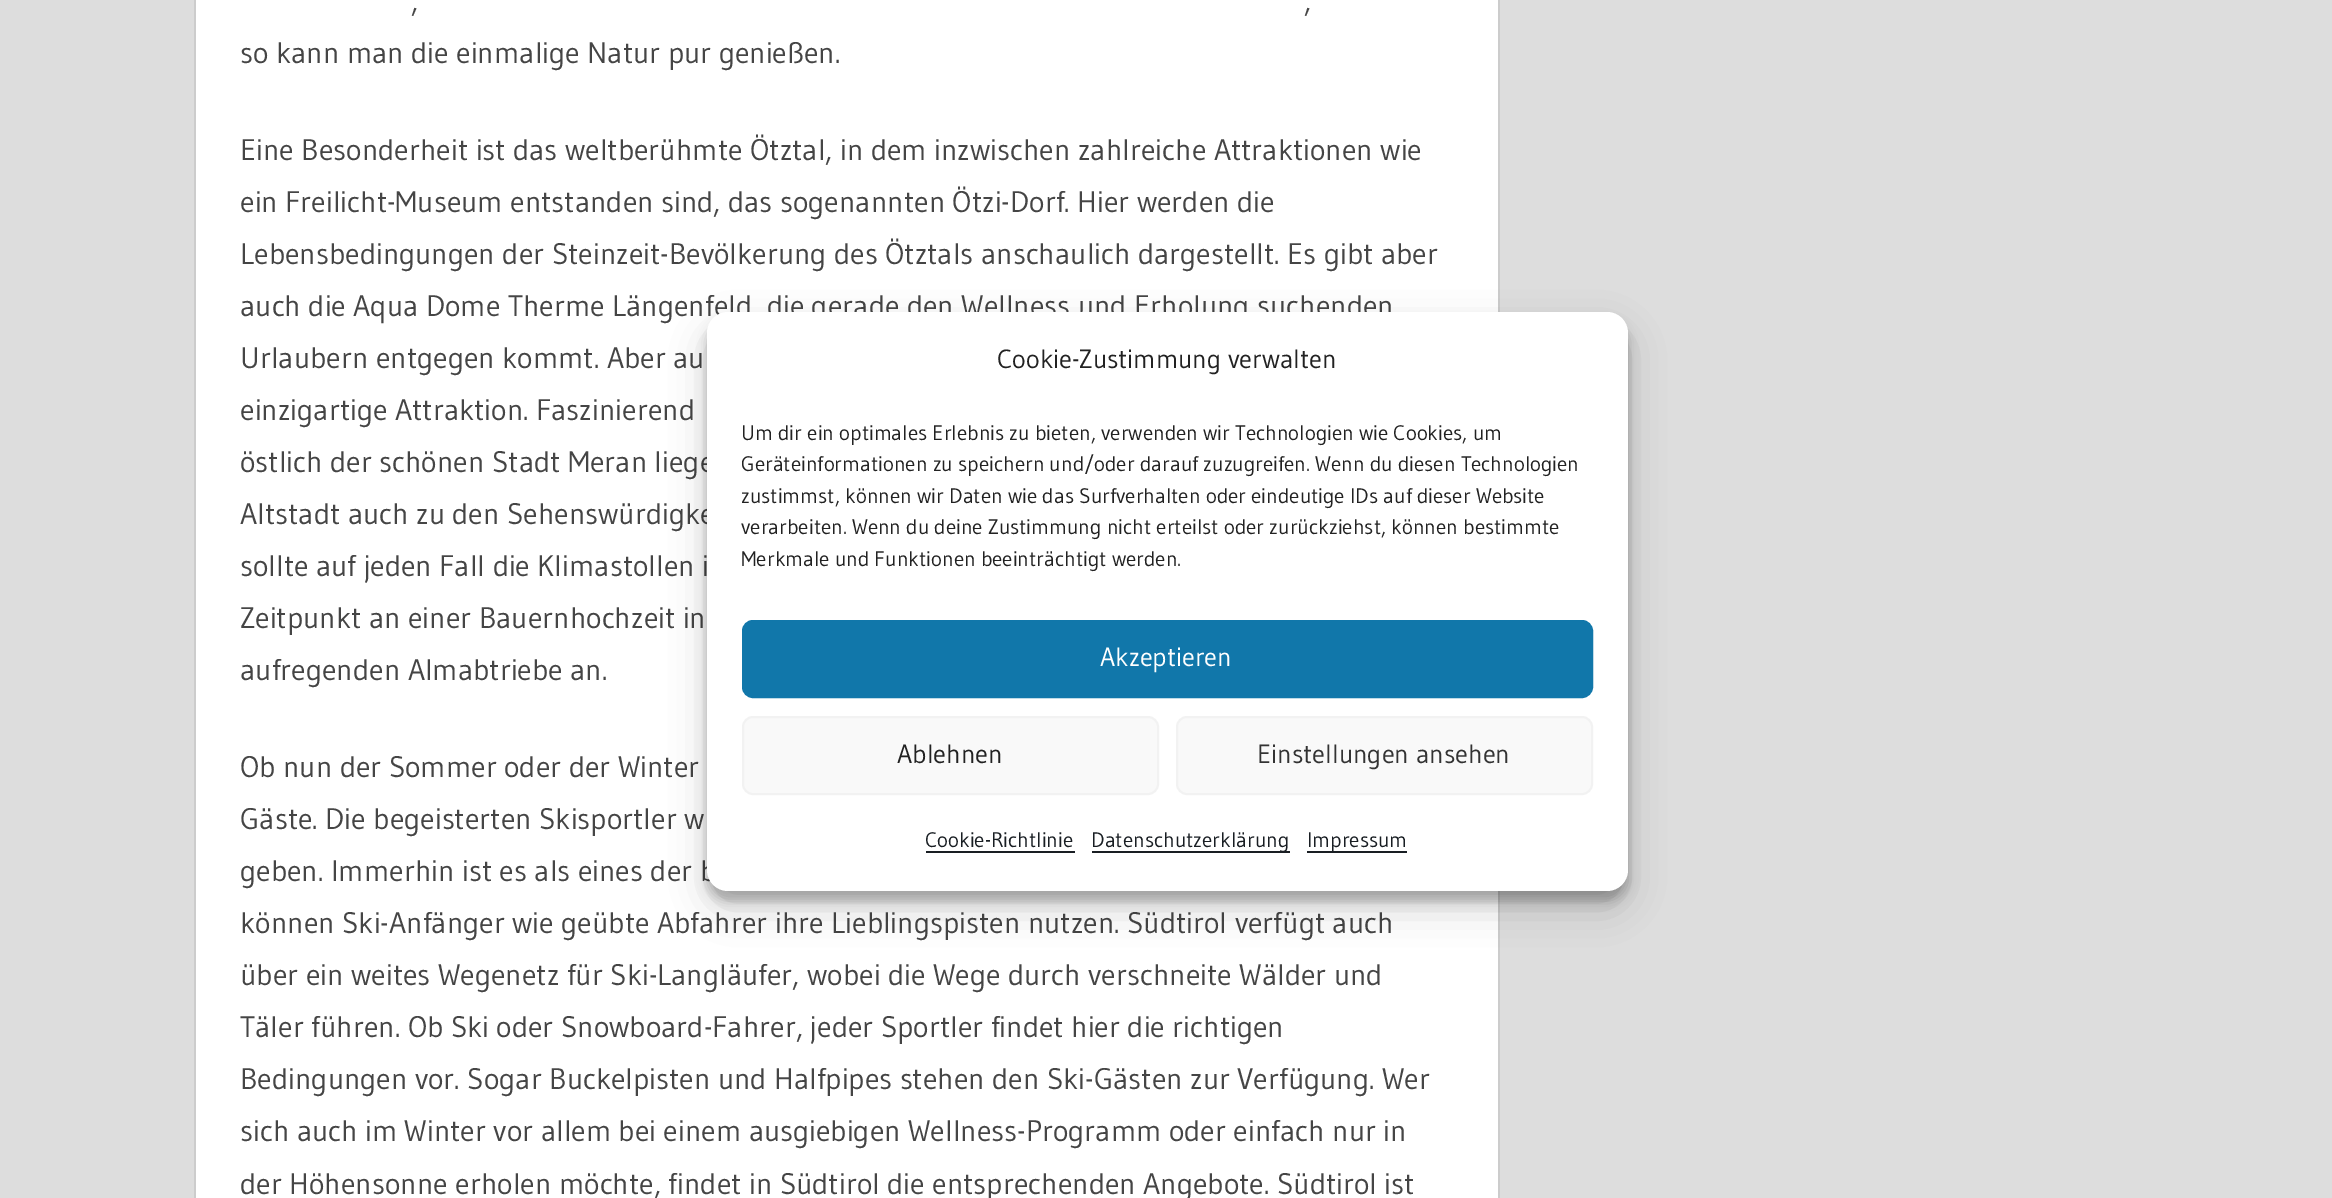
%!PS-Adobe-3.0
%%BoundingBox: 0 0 2332 1198
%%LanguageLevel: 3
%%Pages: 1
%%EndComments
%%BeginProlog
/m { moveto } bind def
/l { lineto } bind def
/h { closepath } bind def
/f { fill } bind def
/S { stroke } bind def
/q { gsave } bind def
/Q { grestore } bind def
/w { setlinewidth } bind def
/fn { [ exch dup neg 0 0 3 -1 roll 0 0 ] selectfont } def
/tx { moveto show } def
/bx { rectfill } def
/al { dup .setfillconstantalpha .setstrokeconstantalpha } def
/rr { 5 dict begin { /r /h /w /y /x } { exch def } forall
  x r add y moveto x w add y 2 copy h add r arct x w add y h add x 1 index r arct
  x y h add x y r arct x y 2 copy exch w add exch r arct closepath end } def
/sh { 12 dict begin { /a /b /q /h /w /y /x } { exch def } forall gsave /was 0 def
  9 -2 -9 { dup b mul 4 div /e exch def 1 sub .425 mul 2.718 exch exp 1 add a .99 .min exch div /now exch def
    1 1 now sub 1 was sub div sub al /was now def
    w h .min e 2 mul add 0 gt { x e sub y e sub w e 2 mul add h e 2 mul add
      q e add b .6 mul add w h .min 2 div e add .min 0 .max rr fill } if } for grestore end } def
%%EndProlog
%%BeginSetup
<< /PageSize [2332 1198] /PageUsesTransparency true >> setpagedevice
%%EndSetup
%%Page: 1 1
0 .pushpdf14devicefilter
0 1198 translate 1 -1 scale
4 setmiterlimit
0.867 setgray
0 0 2332 1198 bx
1 setgray
196 0 1302 1198 bx
0.8 setgray
1500 -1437 m 1500 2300 l 1498 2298 l 1498 -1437 l h f
194 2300 m 194 -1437 l 196 -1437 l 196 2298 l h f
/Gudea-Regular 29.75 fn
0.271 setgray
(,) 411 11 tx
(,) 1304 11 tx
(so kann man die einmalige Natur pur genießen.) 240 63 tx
(Eine Besonderheit ist das weltberühmte Ötztal, in dem inzwischen zahlreiche Attraktionen wie) 240 160 tx
(ein Freilicht-Museum entstanden sind, das sogenannten Ötzi-Dorf. Hier werden die) 240 212 tx
(Lebensbedingungen der Steinzeit-Bevölkerung des Ötztals anschaulich dargestellt. Es gibt aber) 240 264 tx
(auch die Aqua Dome Therme Längenfeld, die gerade den Wellness und Erholung suchenden) 240 316 tx
(Urlaubern entgegen kommt. Aber au) 240 368 tx
(einzigartige Attraktion. Faszinierend) 240 420 tx
(östlich der schönen Stadt Meran liege) 240 472 tx
(Altstadt auch zu den Sehenswürdigke) 240 524 tx
(sollte auf jeden Fall die Klimastollen i) 240 576 tx
(Zeitpunkt an einer Bauernhochzeit in) 240 628 tx
(aufregenden Almabtriebe an.) 240 680 tx
(Ob nun der Sommer oder der Winter) 240 777 tx
(Gäste. Die begeisterten Skisportler w) 240 829 tx
(geben. Immerhin ist es als eines der b) 240 881 tx
(können Ski-Anfänger wie geübte Abfahrer ihre Lieblingspisten nutzen. Südtirol verfügt auch) 240 933 tx
(über ein weites Wegenetz für Ski-Langläufer, wobei die Wege durch verschneite Wälder und) 240 985 tx
(Täler führen. Ob Ski oder Snowboard-Fahrer, jeder Sportler findet hier die richtigen) 240 1037 tx
(Bedingungen vor. Sogar Buckelpisten und Halfpipes stehen den Ski-Gästen zur Verfügung. Wer) 240 1089 tx
(sich auch im Winter vor allem bei einem ausgiebigen Wellness-Programm oder einfach nur in) 240 1141 tx
(der Höhensonne erholen möchte, findet in Südtirol die entsprechenden Angebote. Südtirol ist) 240 1194 tx
0 setgray
707 322 921 579 21 5 0.23 sh
707 329 921 579 21 17.5 0.19 sh
1 setgray
707 312 921 579 21 rr f
/Gudea-Regular 26.25 fn
0.133 setgray
(Cookie-Zustimmung verwalten) 997 368 tx
/Gudea-Regular 21 fn
(Um dir ein optimales Erlebnis zu bieten, verwenden wir Technologien wie Cookies, um) 741 440 tx
(Geräteinformationen zu speichern und/oder darauf zuzugreifen. Wenn du diesen Technologien) 741 471 tx
(zustimmst, können wir Daten wie das Surfverhalten oder eindeutige IDs auf dieser Website) 741 503 tx
(verarbeiten. Wenn du deine Zustimmung nicht erteilst oder zurückziehst, können bestimmte) 741 534 tx
(Merkmale und Funktionen beeinträchtigt werden.) 741 566 tx
0.067 0.467 0.667 setrgbcolor
743 621 849 76 10 rr q f Q
2 w
S
/Gudea-Regular 26.25 fn
1 setgray
(Akzeptieren) 1100 666 tx
0.976 setgray
743 717 415 77 10 rr q f Q
0.949 setgray
S
0.133 setgray
(Ablehnen) 897 763 tx
0.976 setgray
1177 717 415 77 10 rr q f Q
0.949 setgray
S
0.2 setgray
(Einstellungen ansehen) 1257 763 tx
/Gudea-Regular 21 fn
0.098 0.118 0.137 setrgbcolor
(Cookie-Richtlinie) 925 847 tx
926 851 149 2 bx
1092 851 198 2 bx
(Datenschutzerklärung) 1091 847 tx
1307 851 100 2 bx
(Impressum) 1307 847 tx
.poppdf14devicefilter showpage
%%EOF
